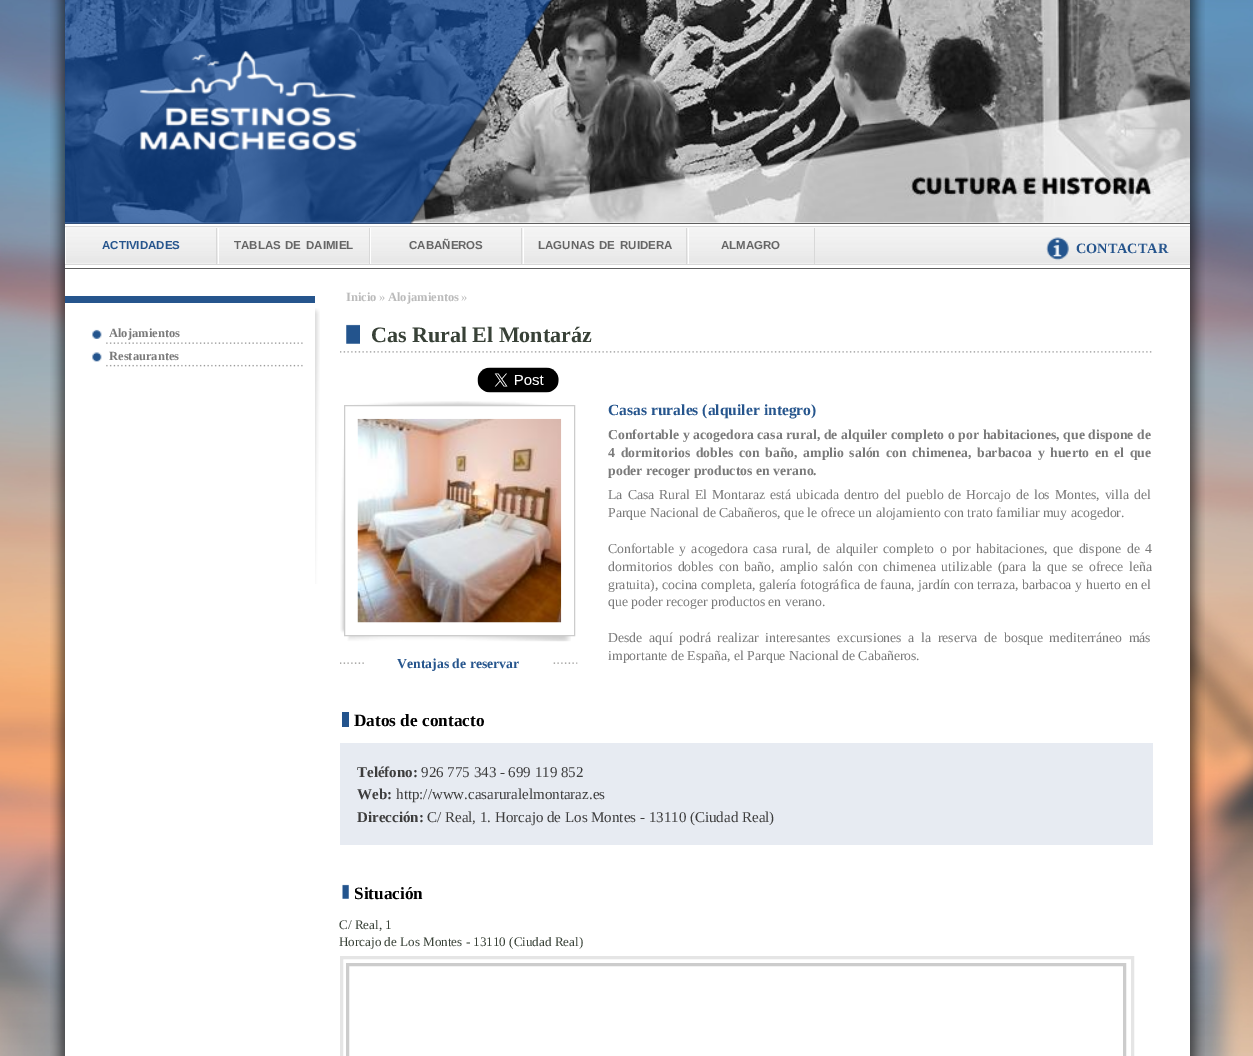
%!PS-Adobe-3.0
%%BoundingBox: 0 0 1253 1056
%%LanguageLevel: 3
%%Pages: 1
%%EndComments
%%BeginProlog
/m { moveto } bind def
/w { setlinewidth } bind def
/fn { [ exch dup neg 0 0 3 -1 roll 0 0 ] selectfont } def
/tx { moveto show } def
/bx { rectfill } def
/im { 5 dict begin { /h /w /y /x /name } { exch def } forall
  gsave x y translate w h scale
  w h 8 [w 0 0 h 0 0] name (r) file false 3 colorimage grestore end } def
%%EndProlog
%%BeginSetup
<< /PageSize [1253 1056] >> setpagedevice
%%EndSetup
%%Page: 1 1
0 1056 translate 1 -1 scale
4 setmiterlimit
1 setgray
0 0 1253 1056 bx
(image0.raw) 0 0 1253 1056 im
(image1.raw) 50 0 1155 1056 im
65 222 1125 834 bx
(image2.raw) 65 0 1125 223 im
0.369 setgray
65 223 1125 1 bx
(image3.raw) 65 0 488 224 im
65 268 1125 1 bx
(image4.raw) 65 227 1125 37 im
0.847 setgray
65 226 1125 1 bx
65 264 1125 1 bx
216 228 1 36 bx
1 setgray
65 228 1 36 bx
/LiberationSans-Bold 11.5 fn
0.149 0.333 0.553 setrgbcolor
(ACTIVIDADES) 102 249 tx
0.847 setgray
369 228 1 36 bx
1 setgray
218 228 1 36 bx
0.4 setgray
(TABLAS) 234 249 tx
(DE) 285 249 tx
(DAIMIEL) 306 249 tx
0.847 setgray
521 228 1 36 bx
1 setgray
370 228 1 36 bx
0.4 setgray
(CABAÑEROS) 409 249 tx
0.847 setgray
686 228 1 36 bx
1 setgray
523 228 1 36 bx
0.4 setgray
(LAGUNAS) 538 249 tx
(DE) 599 249 tx
(RUIDERA) 620 249 tx
0.847 setgray
814 228 1 36 bx
1 setgray
688 228 1 36 bx
0.4 setgray
(ALMAGRO) 721 249 tx
(image5.raw) 1046 237 23 24 im
/LiberationSerif-Bold 14.25 fn
0.149 0.333 0.553 setrgbcolor
(CONTACTAR) 1076 253 tx
65 296 250 7 bx
(image6.raw) 315 308 5 276 im
(image7.raw) 92 329 211 15 im
/LiberationSerif-Bold 12.5 fn
0.478 setgray
(Alojamientos) 109 337 tx
(image8.raw) 92 352 211 15 im
(Restaurantes) 109 360 tx
0.733 setgray
(Inicio) 346 301 tx
/LiberationSerif-Regular 12.5 fn
(») 379 301 tx
/LiberationSerif-Bold 12.5 fn
(Alojamientos) 388 301 tx
/LiberationSerif-Regular 12.5 fn
(») 461 301 tx
(image9.raw) 346 324 14 20 im
/LiberationSerif-Bold 22 fn
0.22 0.255 0.216 setrgbcolor
(Cas Rural El Montaráz) 371 342 tx
(image10.raw) 340 351 812 2 im
(image11.raw) 477 367 82 26 im
/LiberationSerif-Bold 15.6 fn
0.149 0.333 0.553 setrgbcolor
(Casas rurales \(alquiler integro\)) 608 415 tx
/LiberationSerif-Bold 13.75 fn
0.478 setgray
608 439 m 0.25 0 32 (Confortable y acogedora casa rural, de alquiler completo o por habitaciones, que dispone de) widthshow
608 457 m 2.25 0 32 (4 dormitorios dobles con baño, amplio salón con chimenea, barbacoa y huerto en el que) widthshow
(poder recoger productos en verano.) 608 475 tx
/LiberationSerif-Regular 13.75 fn
608 499 m 1.6 0 32 (La Casa Rural El Montaraz está ubicada dentro del pueblo de Horcajo de los Montes, villa del) widthshow
(Parque Nacional de Cabañeros, que le ofrece un alojamiento con trato familiar muy acogedor.) 608 517 tx
608 553 m 2 0 32 (Confortable y acogedora casa rural, de alquiler completo o por habitaciones, que dispone de 4) widthshow
608 571 m 2 0 32 (dormitorios dobles con baño, amplio salón con chimenea utilizable \(para la que se ofrece leña) widthshow
608 589 m 0.25 0 32 (gratuita\), cocina completa, galería fotográfica de fauna, jardín con terraza, barbacoa y huerto en el) widthshow
(que poder recoger productos en verano.) 608 606 tx
608 642 m 3.25 0 32 (Desde aquí podrá realizar interesantes excursiones a la reserva de bosque mediterráneo más) widthshow
(importante de España, el Parque Nacional de Cabañeros.) 608 660 tx
(image12.raw) 340 401 231 241 im
1 setgray
345 406 226 229 bx
0.8 setgray
344.5 405.5 230 230 rectstroke
(image13.raw) 357 418 205 205 im
(image14.raw) 340 662 238 2 im
1 setgray
366 662 186 2 bx
/LiberationSerif-Bold 13.75 fn
0.149 0.333 0.553 setrgbcolor
(Ventajas de reservar) 397 668 tx
0.137 0.329 0.553 setrgbcolor
342 712 7 15 bx
/LiberationSerif-Bold 17.25 fn
0 setgray
(Datos de contacto) 354 726 tx
0.906 0.922 0.949 setrgbcolor
340 743 813 102 bx
/LiberationSerif-Bold 15 fn
0.239 setgray
(Teléfono:) 357 777 tx
/LiberationSerif-Regular 15 fn
(926 775 343 - 699 119 852) 421 777 tx
/LiberationSerif-Bold 15 fn
(Web:) 357 799 tx
/LiberationSerif-Regular 15 fn
(http://www.casaruralelmontaraz.es) 396 799 tx
/LiberationSerif-Bold 15 fn
(Dirección:) 357 822 tx
/LiberationSerif-Regular 15 fn
(C/ Real, 1. Horcajo de Los Montes - 13110 \(Ciudad Real\)) 427 822 tx
(image15.raw) 342 884 7 15 im
/LiberationSerif-Bold 17.25 fn
0 setgray
(Situación) 354 899 tx
/LiberationSerif-Regular 13.1 fn
0.22 0.255 0.216 setrgbcolor
(C/ Real, 1) 339 929 tx
(Horcajo de Los Montes - 13110 \(Ciudad Real\)) 339 946 tx
0.898 setgray
3 w
341.5 957.5 791 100 rectstroke
0.8 setgray
347.5 964.5 777 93 rectstroke
showpage
%%EOF
